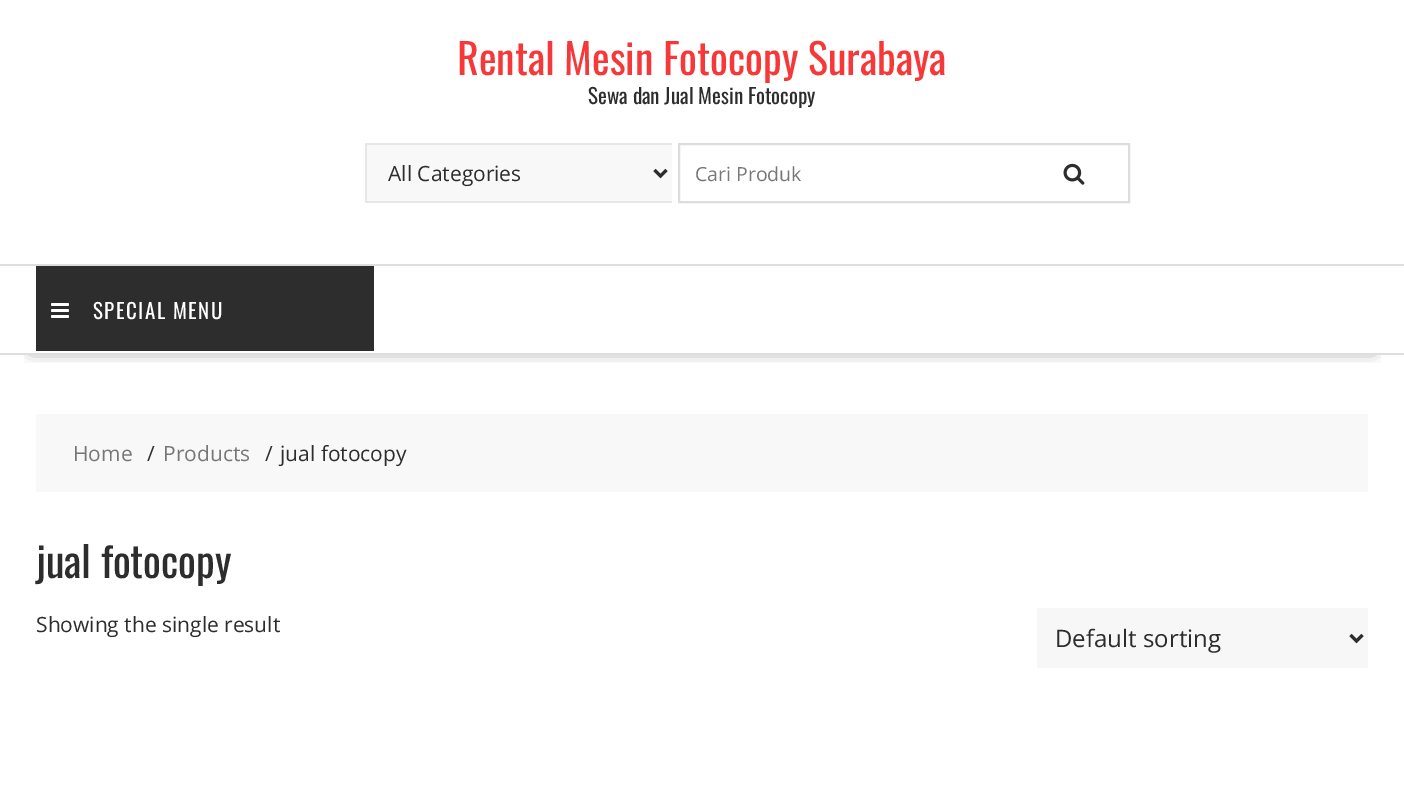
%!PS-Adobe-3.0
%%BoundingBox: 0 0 1404 803
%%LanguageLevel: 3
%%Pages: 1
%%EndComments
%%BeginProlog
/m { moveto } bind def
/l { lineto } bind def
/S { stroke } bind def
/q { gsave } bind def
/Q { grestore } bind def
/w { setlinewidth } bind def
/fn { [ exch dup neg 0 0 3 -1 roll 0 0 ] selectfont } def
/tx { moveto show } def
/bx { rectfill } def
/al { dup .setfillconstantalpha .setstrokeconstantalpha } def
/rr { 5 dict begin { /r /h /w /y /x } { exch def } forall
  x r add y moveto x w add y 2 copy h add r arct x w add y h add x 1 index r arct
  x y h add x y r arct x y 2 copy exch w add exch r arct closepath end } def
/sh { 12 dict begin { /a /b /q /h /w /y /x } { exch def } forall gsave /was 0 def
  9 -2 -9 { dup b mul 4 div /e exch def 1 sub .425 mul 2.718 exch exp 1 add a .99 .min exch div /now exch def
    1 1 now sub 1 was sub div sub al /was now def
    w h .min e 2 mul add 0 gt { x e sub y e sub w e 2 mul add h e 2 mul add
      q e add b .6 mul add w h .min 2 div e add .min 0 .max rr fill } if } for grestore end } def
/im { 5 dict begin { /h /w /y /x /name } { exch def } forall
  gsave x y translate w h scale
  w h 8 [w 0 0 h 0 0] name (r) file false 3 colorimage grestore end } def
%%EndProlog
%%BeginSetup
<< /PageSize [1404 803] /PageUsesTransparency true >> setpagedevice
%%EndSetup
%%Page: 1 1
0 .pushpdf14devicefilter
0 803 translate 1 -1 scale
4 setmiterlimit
1 setgray
0 0 1404 803 bx
/Oswald-Regular 42 fn
0.969 0.22 0.22 setrgbcolor
(Rental Mesin Fotocopy Surabaya) 457 75 tx
/Oswald-Regular 21 fn
0.176 setgray
(Sewa dan Jual Mesin Fotocopy) 588 104 tx
0.973 setgray
367 145 305 56 bx
0.906 setgray
365 143 307 2 bx
365 201 307 2 bx
365 143 2 60 bx
0.176 setgray
3 w
654.5 170 m 660.5 176 l 666.5 170 l S
/OpenSans-Regular 21 fn
(All Categories) 388 181 tx
0.867 setgray
2 w
679 144 450 58 rectstroke
/OpenSans-Regular 19.5 fn
0.467 setgray
(Cari Produk) 695 181 tx
(image0.raw) 1063 163 22 22 im
q
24 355 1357 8 rectclip
0 setgray
32 321 1341 27 0 8 0.75 sh
Q
0.871 setgray
0 264 1404 2 bx
0 353 1404 2 bx
0.176 setgray
36 266 338 85 bx
(image1.raw) 51 303 18 15 im
/Oswald-Regular 21 fn
1 setgray
93 319 m 1.5 0 (SPECIAL MENU) ashow
0.973 setgray
36 414 1332 78 bx
/OpenSans-Regular 21 fn
0.467 setgray
(Home) 73 461 tx
0.176 setgray
(/) 147 461 tx
0.467 setgray
(Products) 163 461 tx
0.176 setgray
(/) 265 461 tx
(jual fotocopy) 280 461 tx
/Oswald-Regular 42 fn
(jual fotocopy) 36 578 tx
/OpenSans-Regular 21 fn
(Showing the single result) 36 632 tx
0.969 setgray
1037 608 331 60 bx
0.176 setgray
3 w
1350.5 635 m 1356.5 641 l 1362.5 635 l S
/OpenSans-Regular 24 fn
(Default sorting) 1055 647 tx
.poppdf14devicefilter showpage
%%EOF
